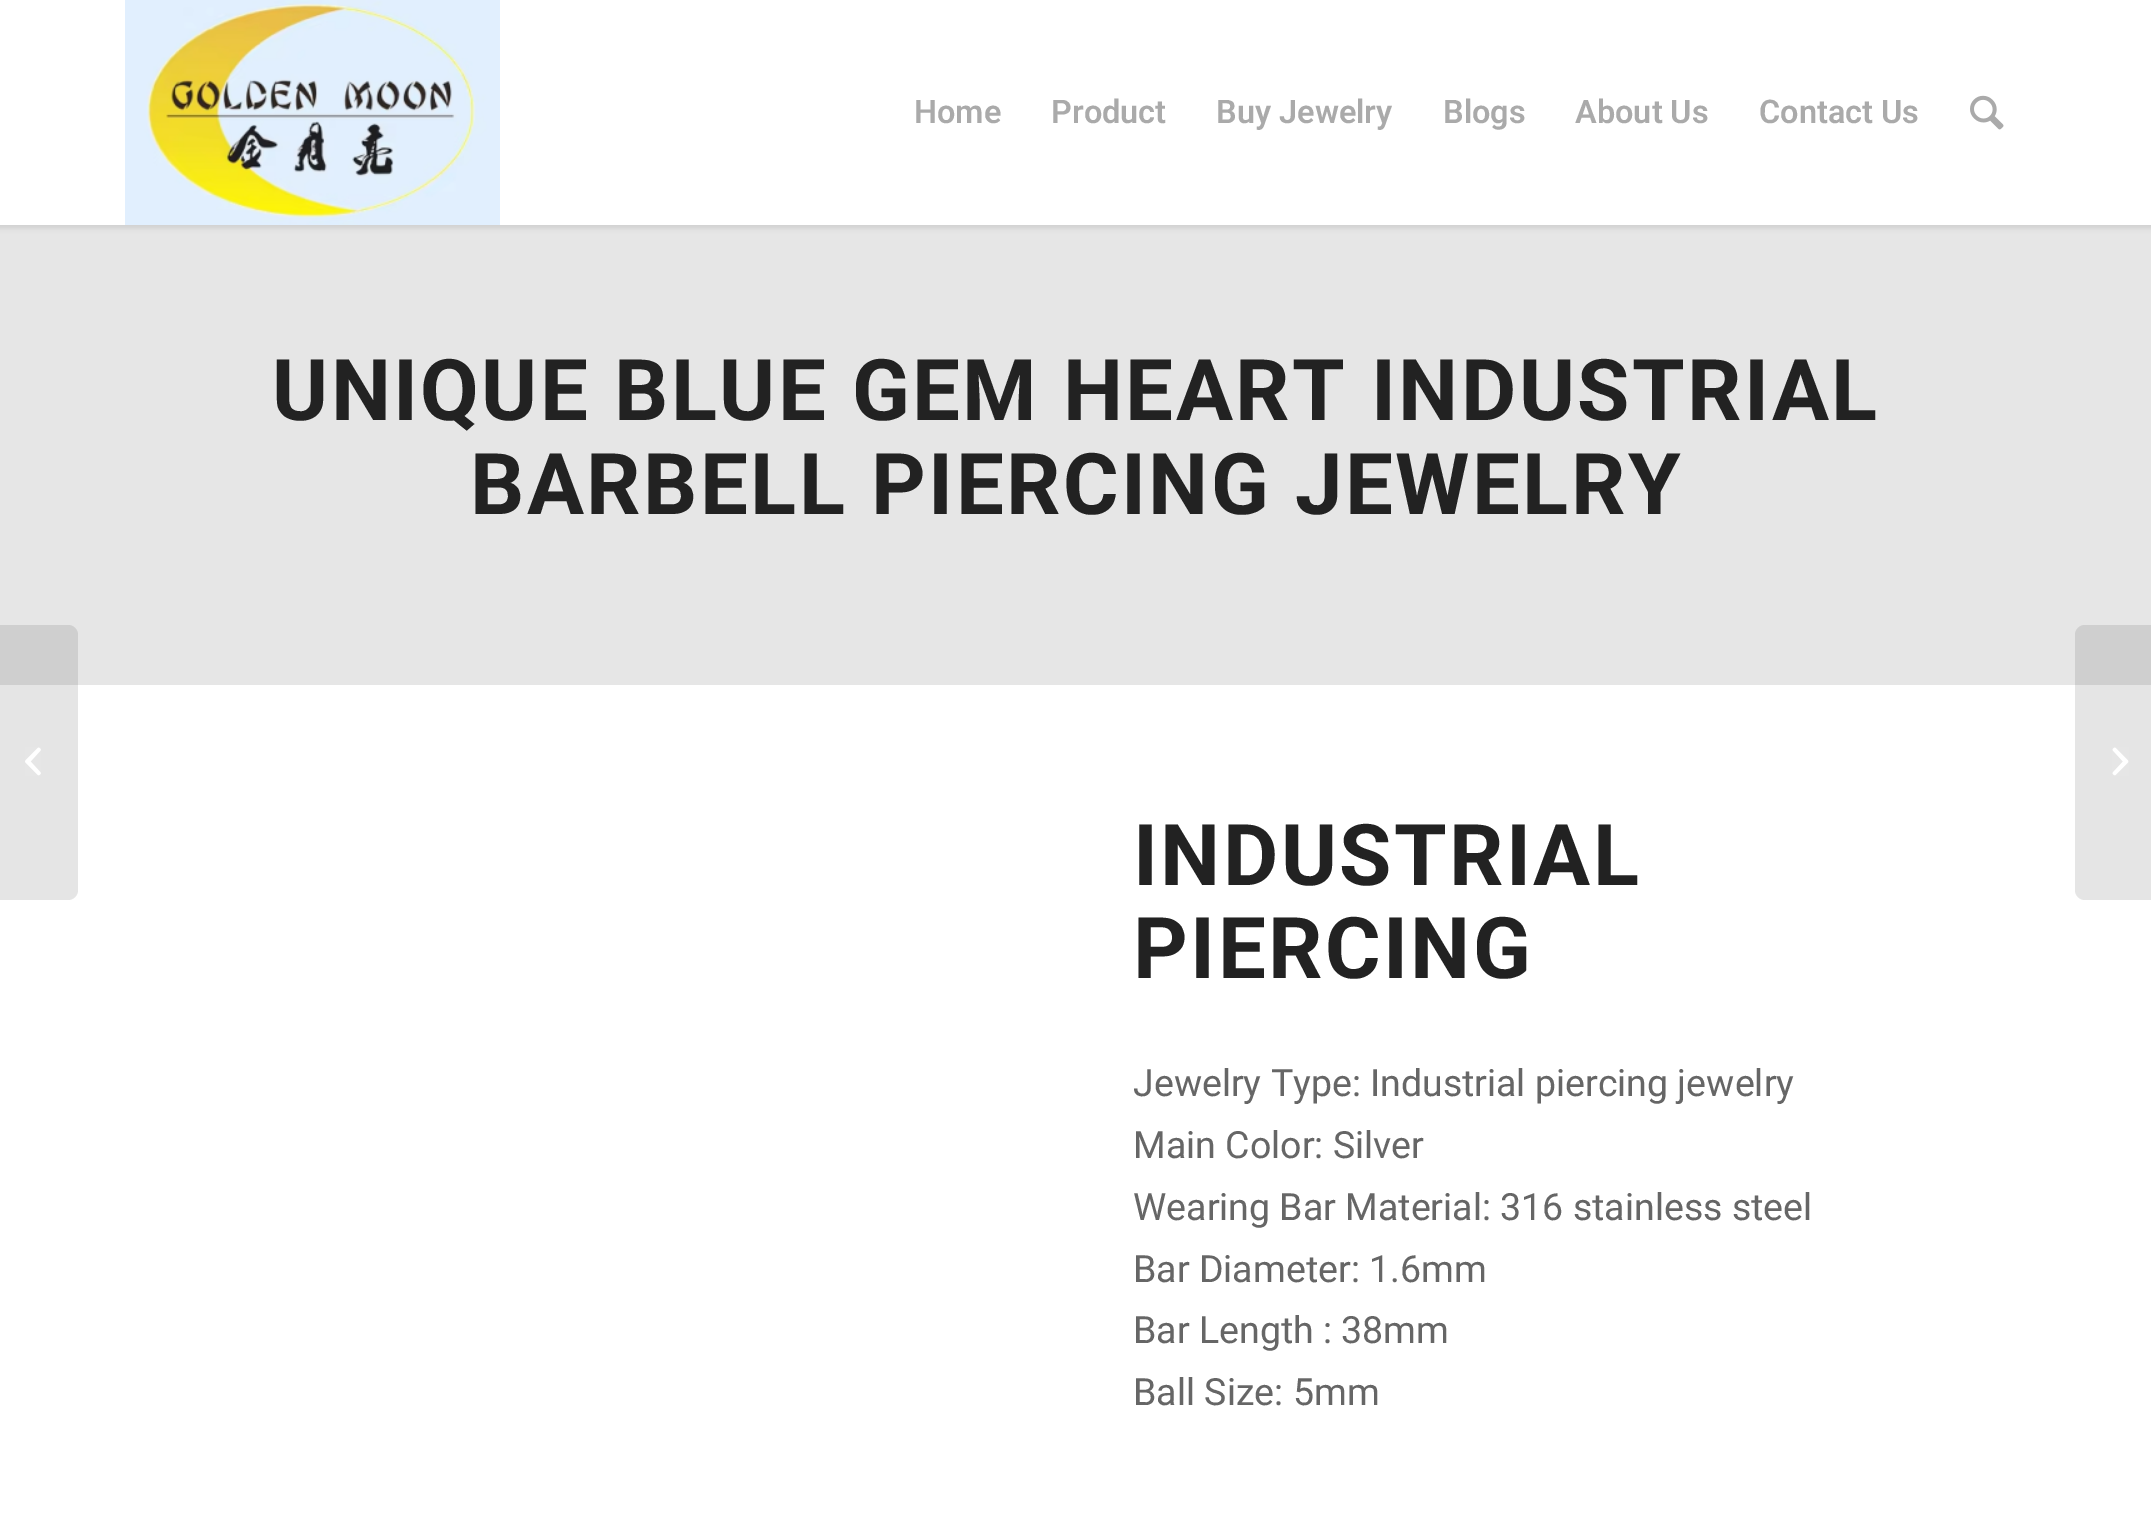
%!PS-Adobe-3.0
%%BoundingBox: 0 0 2151 1522
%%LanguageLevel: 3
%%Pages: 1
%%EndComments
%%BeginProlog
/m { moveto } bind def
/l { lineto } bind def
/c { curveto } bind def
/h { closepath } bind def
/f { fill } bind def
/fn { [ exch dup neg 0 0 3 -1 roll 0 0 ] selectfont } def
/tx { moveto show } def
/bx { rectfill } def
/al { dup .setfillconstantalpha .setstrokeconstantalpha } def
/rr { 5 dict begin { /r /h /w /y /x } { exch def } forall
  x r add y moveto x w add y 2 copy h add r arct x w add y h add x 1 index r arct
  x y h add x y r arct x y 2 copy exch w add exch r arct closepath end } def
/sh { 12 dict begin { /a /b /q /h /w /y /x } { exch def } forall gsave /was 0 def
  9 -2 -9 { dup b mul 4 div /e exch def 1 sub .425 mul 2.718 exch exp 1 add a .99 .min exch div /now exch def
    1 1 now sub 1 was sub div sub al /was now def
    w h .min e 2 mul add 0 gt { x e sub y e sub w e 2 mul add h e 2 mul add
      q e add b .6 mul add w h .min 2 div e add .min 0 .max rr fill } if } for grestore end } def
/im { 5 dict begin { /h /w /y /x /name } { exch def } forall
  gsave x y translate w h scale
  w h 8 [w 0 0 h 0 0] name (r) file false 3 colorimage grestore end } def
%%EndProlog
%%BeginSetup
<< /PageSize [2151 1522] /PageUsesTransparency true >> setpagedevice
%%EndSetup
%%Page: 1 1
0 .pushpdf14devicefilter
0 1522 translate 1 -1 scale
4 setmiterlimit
1 setgray
0 0 2151 1522 bx
0.902 setgray
0 225 2151 460 bx
0 setgray
-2 -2 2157 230 0 2.5 0.1 sh
1 setgray
0 0 2151 225 bx
(image0.raw) 125 0 375 225 im
/Roboto-SemiBold 32.5 fn
0.667 setgray
(Home) 914 123 tx
(Product) 1051 123 tx
(Buy Jewelry) 1216 123 tx
(Blogs) 1443 123 tx
(About Us) 1575 123 tx
(Contact Us) 1759 123 tx
(image1.raw) 1970 95 34 35 im
0.1 al
0 setgray
0 625 m 68 625 l 73.5 625 78 629.5 78 635 c 78 890 l 78 895.5 73.5 900 68 900 c 0 900 l h f
1 al
(image2.raw) 25 747 16 29 im
/Roboto-Bold 85 fn
0.133 setgray
272 420 m 2.5 0 (UNIQUE BLUE GEM HEART INDUSTRIAL) ashow
470 514 m 2.5 0 (BARBELL PIERCING JEWELRY) ashow
1133 885 m 2.5 0 (INDUSTRIAL) ashow
1133 978 m 2.5 0 (PIERCING) ashow
/Roboto-Regular 37.5 fn
0.4 setgray
(Jewelry Type: Industrial piercing jewelry) 1133 1096 tx
(Main Color: Silver) 1133 1158 tx
(Wearing Bar Material: 316 stainless steel) 1133 1220 tx
(Bar Diameter: 1.6mm) 1133 1282 tx
(Bar Length : 38mm) 1133 1343 tx
(Ball Size: 5mm) 1133 1405 tx
0.1 al
0 setgray
2085 625 m 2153 625 l 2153 900 l 2085 900 l 2079.5 900 2075 895.5 2075 890 c 2075 635 l 2075 629.5 2079.5 625 2085 625 c h f
1 al
(image3.raw) 2112 747 17 29 im
.poppdf14devicefilter showpage
%%EOF
